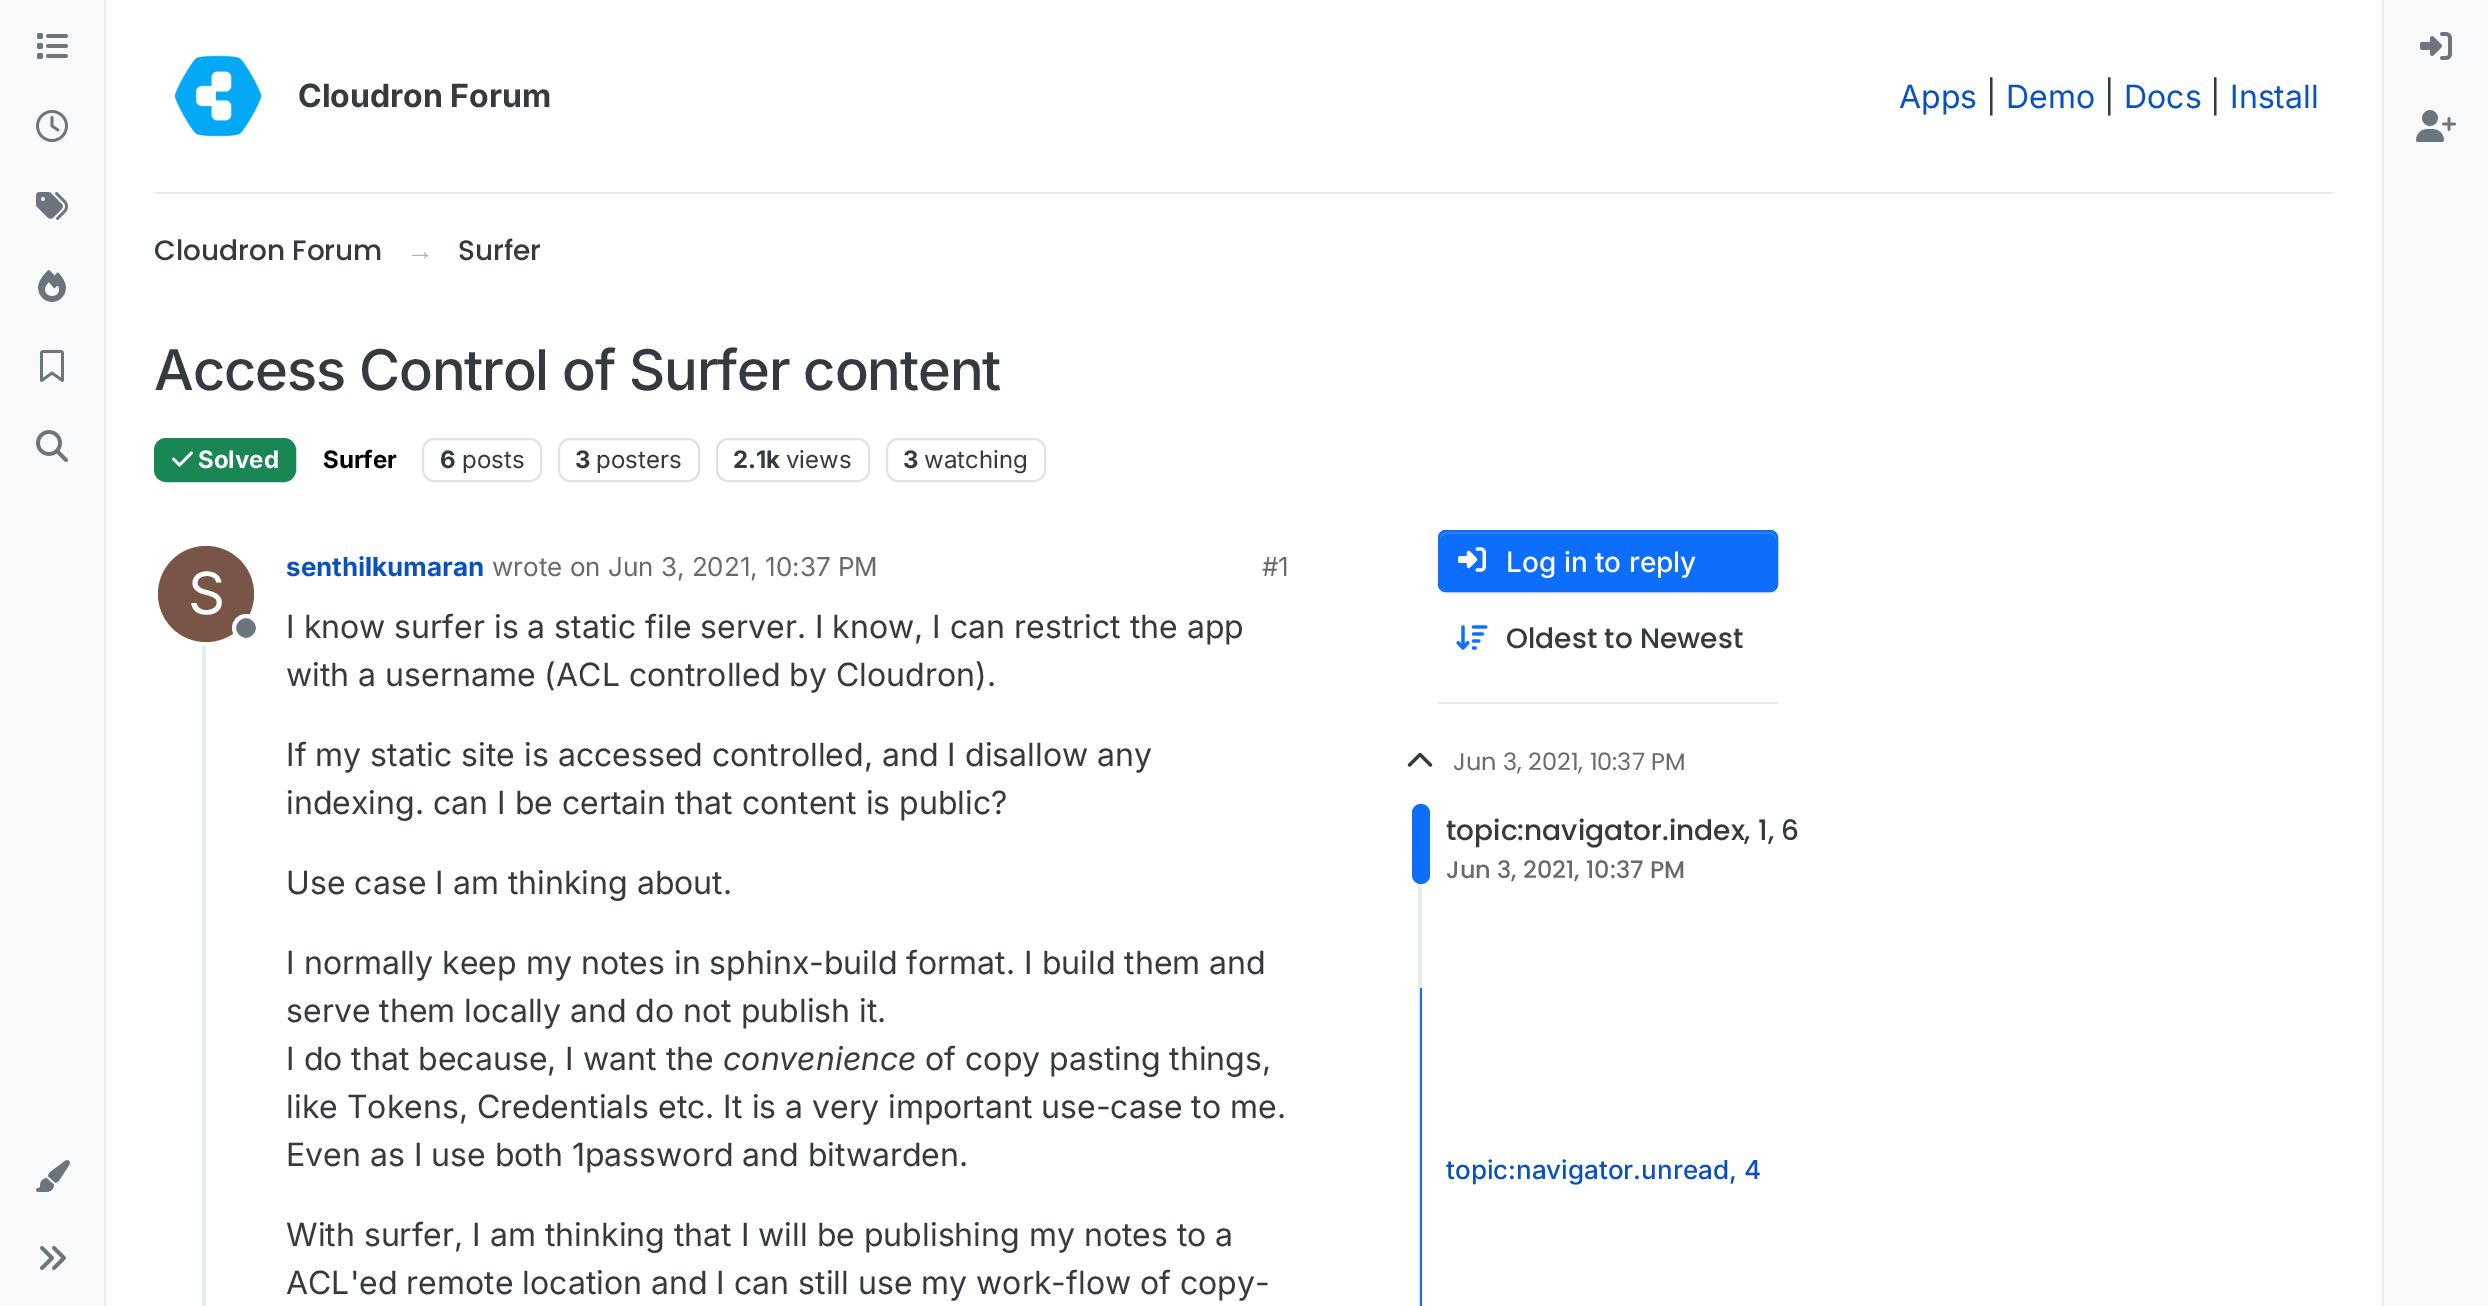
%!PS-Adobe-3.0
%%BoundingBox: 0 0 2488 1306
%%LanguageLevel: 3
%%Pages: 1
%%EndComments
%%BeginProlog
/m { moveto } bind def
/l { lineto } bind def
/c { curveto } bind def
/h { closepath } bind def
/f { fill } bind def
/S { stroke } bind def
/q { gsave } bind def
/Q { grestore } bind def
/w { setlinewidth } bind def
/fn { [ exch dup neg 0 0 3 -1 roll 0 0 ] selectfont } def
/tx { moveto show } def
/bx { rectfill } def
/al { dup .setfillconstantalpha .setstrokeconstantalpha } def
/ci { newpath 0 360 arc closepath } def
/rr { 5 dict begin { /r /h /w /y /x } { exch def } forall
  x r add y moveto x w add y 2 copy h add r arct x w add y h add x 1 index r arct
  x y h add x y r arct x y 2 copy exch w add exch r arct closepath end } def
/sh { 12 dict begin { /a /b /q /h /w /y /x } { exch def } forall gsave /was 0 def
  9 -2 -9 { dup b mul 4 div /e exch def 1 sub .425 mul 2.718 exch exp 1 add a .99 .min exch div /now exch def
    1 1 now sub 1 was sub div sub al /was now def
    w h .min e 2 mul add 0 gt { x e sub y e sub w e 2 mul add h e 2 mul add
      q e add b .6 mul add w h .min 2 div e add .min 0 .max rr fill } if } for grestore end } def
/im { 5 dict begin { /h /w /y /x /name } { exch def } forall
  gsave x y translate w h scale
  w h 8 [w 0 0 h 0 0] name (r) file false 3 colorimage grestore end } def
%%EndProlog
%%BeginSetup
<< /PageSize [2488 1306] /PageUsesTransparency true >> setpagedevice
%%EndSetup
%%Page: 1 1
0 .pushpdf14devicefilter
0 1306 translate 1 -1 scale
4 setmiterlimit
1 setgray
0 0 2488 1306 bx
0.973 0.976 0.98 setrgbcolor
0 0 104 1306 bx
0.914 0.925 0.937 setrgbcolor
104 0 2 1306 bx
(image0.raw) 37 33 31 26 im
(image1.raw) 36 110 32 32 im
(image2.raw) 36 192 32 28 im
(image3.raw) 38 270 28 32 im
(image4.raw) 40 350 24 32 im
(image5.raw) 36 430 32 32 im
(image6.raw) 36 1160 34 32 im
(image7.raw) 40 1246 26 24 im
154 192 2180 2 bx
(image8.raw) 174 55 88 82 im
/Inter-Bold 32 fn
0.204 0.227 0.251 setrgbcolor
(Cloudron Forum) 298 107 tx
/Inter-Regular 32 fn
0.035 0.318 0.745 setrgbcolor
(Apps) 1899 108 tx
0.204 0.227 0.251 setrgbcolor
(|) 1986 108 tx
0.035 0.318 0.745 setrgbcolor
(Demo) 2006 108 tx
0.204 0.227 0.251 setrgbcolor
(|) 2104 108 tx
0.035 0.318 0.745 setrgbcolor
(Docs) 2124 108 tx
0.204 0.227 0.251 setrgbcolor
(|) 2210 108 tx
0.035 0.318 0.745 setrgbcolor
(Install) 2230 108 tx
/Poppins-Medium 28 fn
0.204 0.227 0.251 setrgbcolor
(Cloudron Forum) 154 260 tx
/LiberationSans-Regular 28 fn
0.678 0.71 0.741 setrgbcolor
(→) 406 260 tx
/Poppins-Medium 28 fn
0.204 0.227 0.251 setrgbcolor
(Surfer) 458 260 tx
/Inter-Medium 56 fn
154 390 m -1.1 0 (Access Control of Surfer content) ashow
0.098 0.529 0.329 setrgbcolor
155 439 140 42 11 rr q f Q
2 w
S
(image9.raw) 172 451 21 16 im
/Inter-Bold 24 fn
1 setgray
(Solved) 198 468 tx
0 setgray
(Surfer) 323 468 tx
0.871 0.886 0.902 setrgbcolor
423 439 118 42 11 rr S
0.204 0.227 0.251 setrgbcolor
(6) 440 468 tx
/Inter-Regular 24 fn
(posts) 462 468 tx
0.871 0.886 0.902 setrgbcolor
559 439 140 42 11 rr S
/Inter-Bold 24 fn
0.204 0.227 0.251 setrgbcolor
(3) 575 468 tx
/Inter-Regular 24 fn
(posters) 596 468 tx
0.871 0.886 0.902 setrgbcolor
717 439 152 42 11 rr S
/Inter-Bold 24 fn
0.204 0.227 0.251 setrgbcolor
(2.1k) 733 468 tx
/Inter-Regular 24 fn
(views) 786 468 tx
0.871 0.886 0.902 setrgbcolor
887 439 158 42 11 rr S
/Inter-Bold 24 fn
0.204 0.227 0.251 setrgbcolor
(3) 903 468 tx
/Inter-Regular 24 fn
(watching) 924 468 tx
0.914 0.925 0.937 setrgbcolor
202 546 4 760 bx
1 setgray
4 w
206 594 50 ci S
0.475 0.333 0.282 setrgbcolor
206 594 48 ci f
/Inter-Regular 58 fn
1 setgray
(S) 188 614 tx
0.424 0.459 0.49 setrgbcolor
246 628 12 ci q f Q
1 setgray
S
/Inter-Bold 26 fn
0.035 0.318 0.745 setrgbcolor
(senthilkumaran) 286 576 tx
/Inter-Regular 26 fn
0.404 0.42 0.439 setrgbcolor
(wrote on Jun 3, 2021, 10:37 PM) 492 576 tx
(#1) 1262 576 tx
/Inter-Regular 32 fn
0.204 0.227 0.251 setrgbcolor
(I know surfer is a static file server. I know, I can restrict the app) 286 638 tx
(with a username \(ACL controlled by Cloudron\).) 286 686 tx
(If my static site is accessed controlled, and I disallow any) 286 766 tx
(indexing. can I be certain that content is public?) 286 814 tx
(Use case I am thinking about.) 286 894 tx
(I normally keep my notes in sphinx-build format. I build them and) 286 974 tx
(serve them locally and do not publish it.) 286 1022 tx
(I do that because, I want the) 286 1070 tx
/Inter-Italic 32 fn
(convenience) 723 1070 tx
/Inter-Regular 32 fn
(of copy pasting things,) 925 1070 tx
(like Tokens, Credentials etc. It is a very important use-case to me.) 286 1118 tx
(Even as I use both 1password and bitwarden.) 286 1166 tx
(With surfer, I am thinking that I will be publishing my notes to a) 286 1246 tx
(ACL'ed remote location and I can still use my work-flow of copy-) 286 1294 tx
0 setgray
1438 532 340 62 8 1 0.07 sh
0.051 0.431 0.992 setrgbcolor
1438 530 340 62 8 rr f
0.192 0.518 0.992 setrgbcolor
1446 534 m 1770 534 l 1773 534 1776 537 1776 540 c 1776 538 l 1776 535 1773 532 1770 532 c 1446 532 l 1443 532 1440 535 1440 538 c 1440 540 l 1440 537 1443 534 1446 534 c h f
0.051 0.431 0.992 setrgbcolor
2 w
1439 531 338 60 7 rr S
(image10.raw) 1458 547 28 25 im
/Inter-Medium 28 fn
1 setgray
(Log in to reply) 1506 572 tx
(image11.raw) 1456 625 32 25 im
/Poppins-Medium 28 fn
0.204 0.227 0.251 setrgbcolor
(Oldest to Newest) 1506 648 tx
0.914 0.925 0.937 setrgbcolor
1438 702 340 2 bx
(image12.raw) 1407 752 26 15 im
/Poppins-Regular 24 fn
0.404 0.42 0.439 setrgbcolor
(Jun 3, 2021, 10:37 PM) 1453 770 tx
0.914 0.925 0.937 setrgbcolor
1418 804 4 502 bx
0.051 0.431 0.992 setrgbcolor
1412 804 18 80 9 rr f
/Poppins-Medium 28 fn
0.204 0.227 0.251 setrgbcolor
(topic:navigator.index, 1, 6) 1446 840 tx
/Poppins-Medium 24 fn
0.404 0.42 0.439 setrgbcolor
(Jun 3, 2021, 10:37 PM) 1446 878 tx
0.051 0.431 0.992 setrgbcolor
1420 988 2 318 bx
/Inter-Medium 26 fn
0.035 0.318 0.745 setrgbcolor
(topic:navigator.unread, 4) 1446 1179 tx
0.973 0.976 0.98 setrgbcolor
2384 0 104 1306 bx
0.914 0.925 0.937 setrgbcolor
2382 0 2 1306 bx
(image13.raw) 2420 32 32 28 im
(image14.raw) 2416 110 40 32 im
.poppdf14devicefilter showpage
%%EOF
